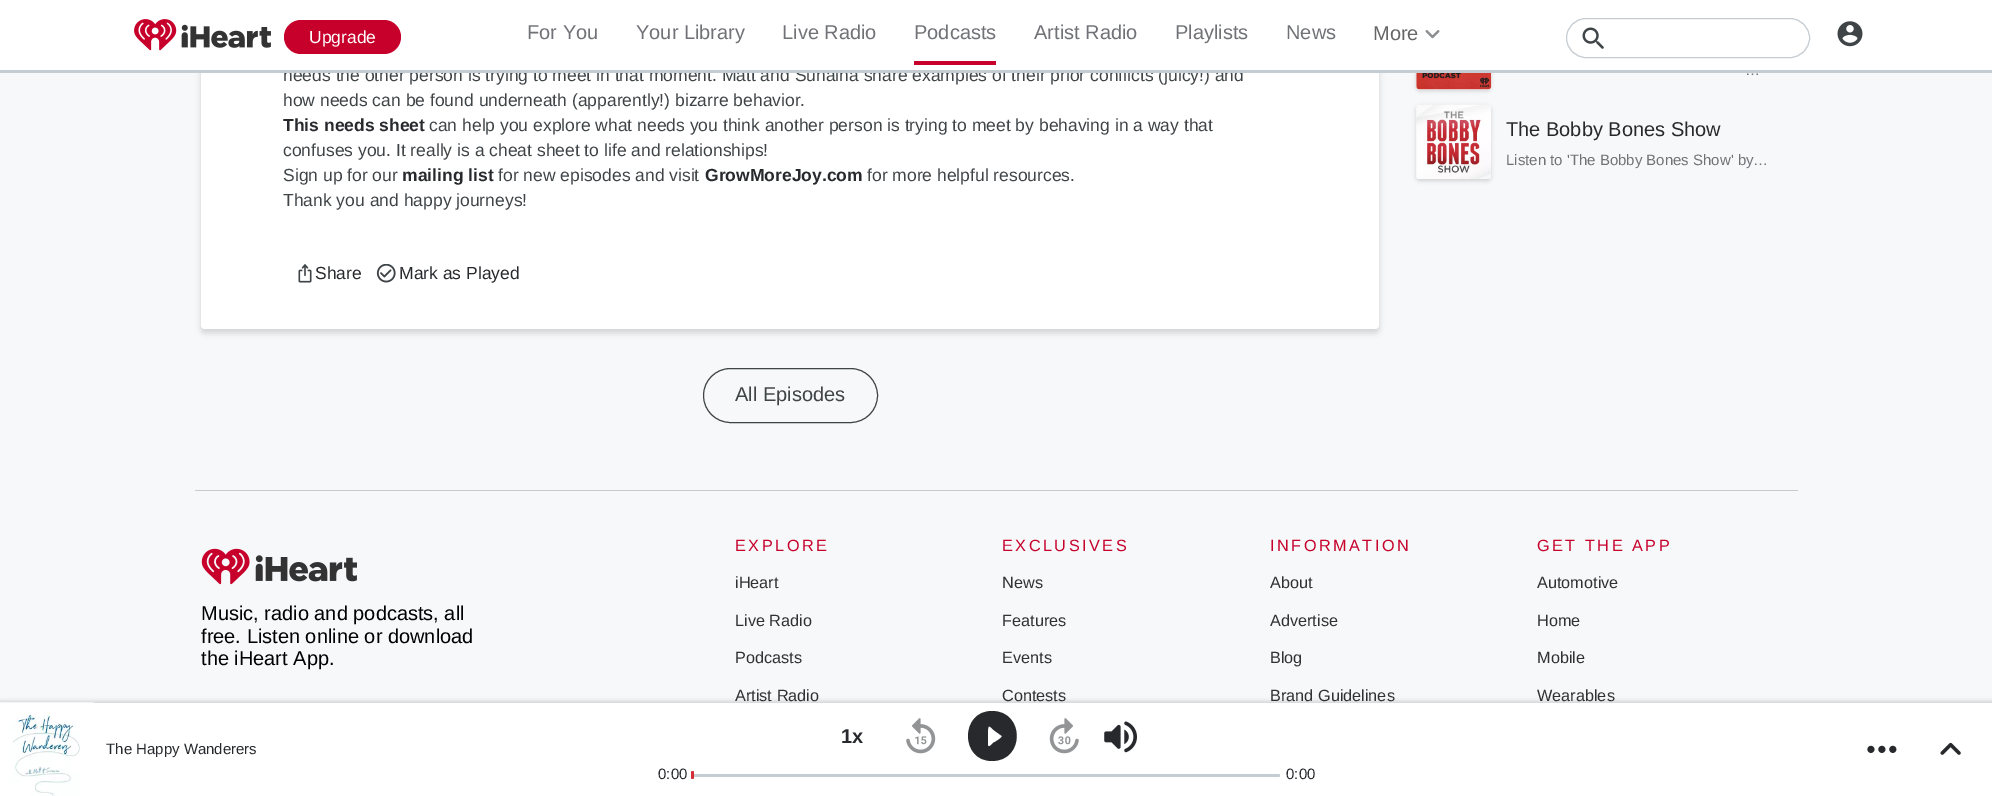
%!PS-Adobe-3.0
%%BoundingBox: 0 0 1992 796
%%LanguageLevel: 3
%%Pages: 1
%%EndComments
%%BeginProlog
/m { moveto } bind def
/l { lineto } bind def
/c { curveto } bind def
/h { closepath } bind def
/f { fill } bind def
/S { stroke } bind def
/fn { [ exch dup neg 0 0 3 -1 roll 0 0 ] selectfont } def
/tx { moveto show } def
/bx { rectfill } def
/al { dup .setfillconstantalpha .setstrokeconstantalpha } def
/rr { 5 dict begin { /r /h /w /y /x } { exch def } forall
  x r add y moveto x w add y 2 copy h add r arct x w add y h add x 1 index r arct
  x y h add x y r arct x y 2 copy exch w add exch r arct closepath end } def
/sh { 12 dict begin { /a /b /q /h /w /y /x } { exch def } forall gsave /was 0 def
  9 -2 -9 { dup b mul 4 div /e exch def 1 sub .425 mul 2.718 exch exp 1 add a .99 .min exch div /now exch def
    1 1 now sub 1 was sub div sub al /was now def
    w h .min e 2 mul add 0 gt { x e sub y e sub w e 2 mul add h e 2 mul add
      q e add b .6 mul add w h .min 2 div e add .min 0 .max rr fill } if } for grestore end } def
/im { 5 dict begin { /h /w /y /x /name } { exch def } forall
  gsave x y translate w h scale
  w h 8 [w 0 0 h 0 0] name (r) file false 3 colorimage grestore end } def
%%EndProlog
%%BeginSetup
<< /PageSize [1992 796] /PageUsesTransparency true >> setpagedevice
%%EndSetup
%%Page: 1 1
0 .pushpdf14devicefilter
0 796 translate 1 -1 scale
4 setmiterlimit
0.965 0.973 0.976 setrgbcolor
0 0 1992 796 bx
0 setgray
201 -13 1178 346 4 3 0.15 sh
1 setgray
201 -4 1178 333 4 rr f
/LiberationSans-Regular 17.5 fn
0.247 0.267 0.278 setrgbcolor
(needs the other person is trying to meet in that moment. Matt and Sunaina share examples of their prior conflicts \(juicy!\) and) 283 81 tx
0 setgray
1416 16 75 75 4 2 0.15 sh
1 setgray
0 0 1992 70 bx
0.773 0.804 0.824 setrgbcolor
0 70 1992 3 bx
(image0.raw) 134 19 137 32 im
0.776 0 0.169 setrgbcolor
284 20 117 34 17 rr f
1 setgray
(Upgrade) 309 43 tx
/LiberationSans-Regular 20 fn
0.443 0.447 0.467 setrgbcolor
(For You) 527 39 tx
(Your Library) 636 39 tx
(Live Radio) 782 39 tx
(Podcasts) 914 39 tx
0.776 0 0.169 setrgbcolor
914 61 82 4 bx
0.443 0.447 0.467 setrgbcolor
(Artist Radio) 1034 39 tx
(Playlists) 1175 39 tx
(News) 1286 39 tx
0.4 setgray
(More) 1373 40 tx
(image1.raw) 1425 30 15 9 im
0.773 0.804 0.824 setrgbcolor
1566.5 18.5 243 39 19.5 rr S
(image2.raw) 1582 27 22 22 im
(image3.raw) 1837 21 26 26 im
/LiberationSans-Regular 17.5 fn
0.247 0.267 0.278 setrgbcolor
(how needs can be found underneath \(apparently!\) bizarre behavior.) 283 106 tx
/LiberationSans-Bold 17.5 fn
0.153 0.161 0.176 setrgbcolor
(This needs sheet) 283 131 tx
/LiberationSans-Regular 17.5 fn
0.247 0.267 0.278 setrgbcolor
(can help you explore what needs you think another person is trying to meet by behaving in a way that) 429 131 tx
(confuses you. It really is a cheat sheet to life and relationships!) 283 156 tx
(Sign up for our) 283 181 tx
/LiberationSans-Bold 17.5 fn
0.153 0.161 0.176 setrgbcolor
(mailing list) 402 181 tx
/LiberationSans-Regular 17.5 fn
0.247 0.267 0.278 setrgbcolor
(for new episodes and visit) 498 181 tx
/LiberationSans-Bold 17.5 fn
0.153 0.161 0.176 setrgbcolor
(GrowMoreJoy.com) 705 181 tx
/LiberationSans-Regular 17.5 fn
0.247 0.267 0.278 setrgbcolor
(for more helpful resources.) 867 181 tx
(Thank you and happy journeys!) 283 206 tx
(image4.raw) 298 264 14 19 im
0.153 0.161 0.176 setrgbcolor
(Share) 315 279 tx
(image5.raw) 376 264 20 19 im
(Mark as Played) 399 279 tx
0.247 0.267 0.278 setrgbcolor
703.5 368.5 174 54 27 rr S
/LiberationSans-Regular 20 fn
(All Episodes) 735 401 tx
(image6.raw) 1416 73 76 17 im
/LiberationSans-Regular 15 fn
0.443 0.447 0.467 setrgbcolor
(…) 1745 75 tx
0 setgray
1416 106 75 75 4 2 0.15 sh
(image7.raw) 1416 104 75 75 im
/LiberationSans-Regular 20 fn
0.153 0.161 0.176 setrgbcolor
(The Bobby Bones Show) 1506 136 tx
/LiberationSans-Regular 15 fn
0.443 0.447 0.467 setrgbcolor
(Listen to 'The Bobby Bones Show' by…) 1506 165 tx
0.773 0.804 0.824 setrgbcolor
195 490 1603 1 bx
(image8.raw) 201 548 156 37 im
/LiberationSans-Regular 20 fn
0 setgray
(Music, radio and podcasts, all) 201 620 tx
(free. Listen online or download) 201 643 tx
(the iHeart App.) 201 665 tx
/LiberationSans-Regular 16.25 fn
0.776 0 0.169 setrgbcolor
735 551 m 2.5 0 (EXPLORE) ashow
0.184 0.192 0.2 setrgbcolor
(iHeart) 735 588 tx
(Live Radio) 735 626 tx
(Podcasts) 735 663 tx
(Artist Radio) 735 701 tx
0.776 0 0.169 setrgbcolor
1002 551 m 2.5 0 (EXCLUSIVES) ashow
0.184 0.192 0.2 setrgbcolor
(News) 1002 588 tx
(Features) 1002 626 tx
(Events) 1002 663 tx
(Contests) 1002 701 tx
0.776 0 0.169 setrgbcolor
1270 551 m 2.5 0 (INFORMATION) ashow
0.184 0.192 0.2 setrgbcolor
(About) 1270 588 tx
(Advertise) 1270 626 tx
(Blog) 1270 663 tx
(Brand Guidelines) 1270 701 tx
0.776 0 0.169 setrgbcolor
1537 551 m 2.5 0 (GET THE APP) ashow
0.184 0.192 0.2 setrgbcolor
(Automotive) 1537 588 tx
(Home) 1537 626 tx
(Mobile) 1537 663 tx
(Wearables) 1537 701 tx
0 setgray
0 701 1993 94 0 2 0.15 sh
1 setgray
93 703 1899 93 bx
(image9.raw) 0 702 94 94 im
/LiberationSans-Regular 15 fn
0.153 0.161 0.176 setrgbcolor
(The Happy Wanderers) 106 754 tx
/LiberationSans-Bold 20 fn
(1x) 841 743 tx
(image10.raw) 906 718 30 36 im
992 711 m 960 711 960 761 992 761 c 1025 761 1025 711 992 711 c h 988 745 m 988 730 l 988 723 991 728 995 731 c 1002 736 l 1002 738 995 742 993 743 c 993 743 988 749 988 745 c h f
(image11.raw) 1049 718 30 36 im
(image12.raw) 1104 721 33 32 im
/LiberationSans-Regular 15 fn
(0:00) 658 779 tx
0.773 0.804 0.824 setrgbcolor
693 774 587 3 1.5 rr f
0.835 0.176 0.216 setrgbcolor
691 771 3 8 1.5 rr f
0.153 0.161 0.176 setrgbcolor
(0:00) 1286 779 tx
(image13.raw) 1867 745 30 8 im
(image14.raw) 1940 742 21 13 im
.poppdf14devicefilter showpage
%%EOF
